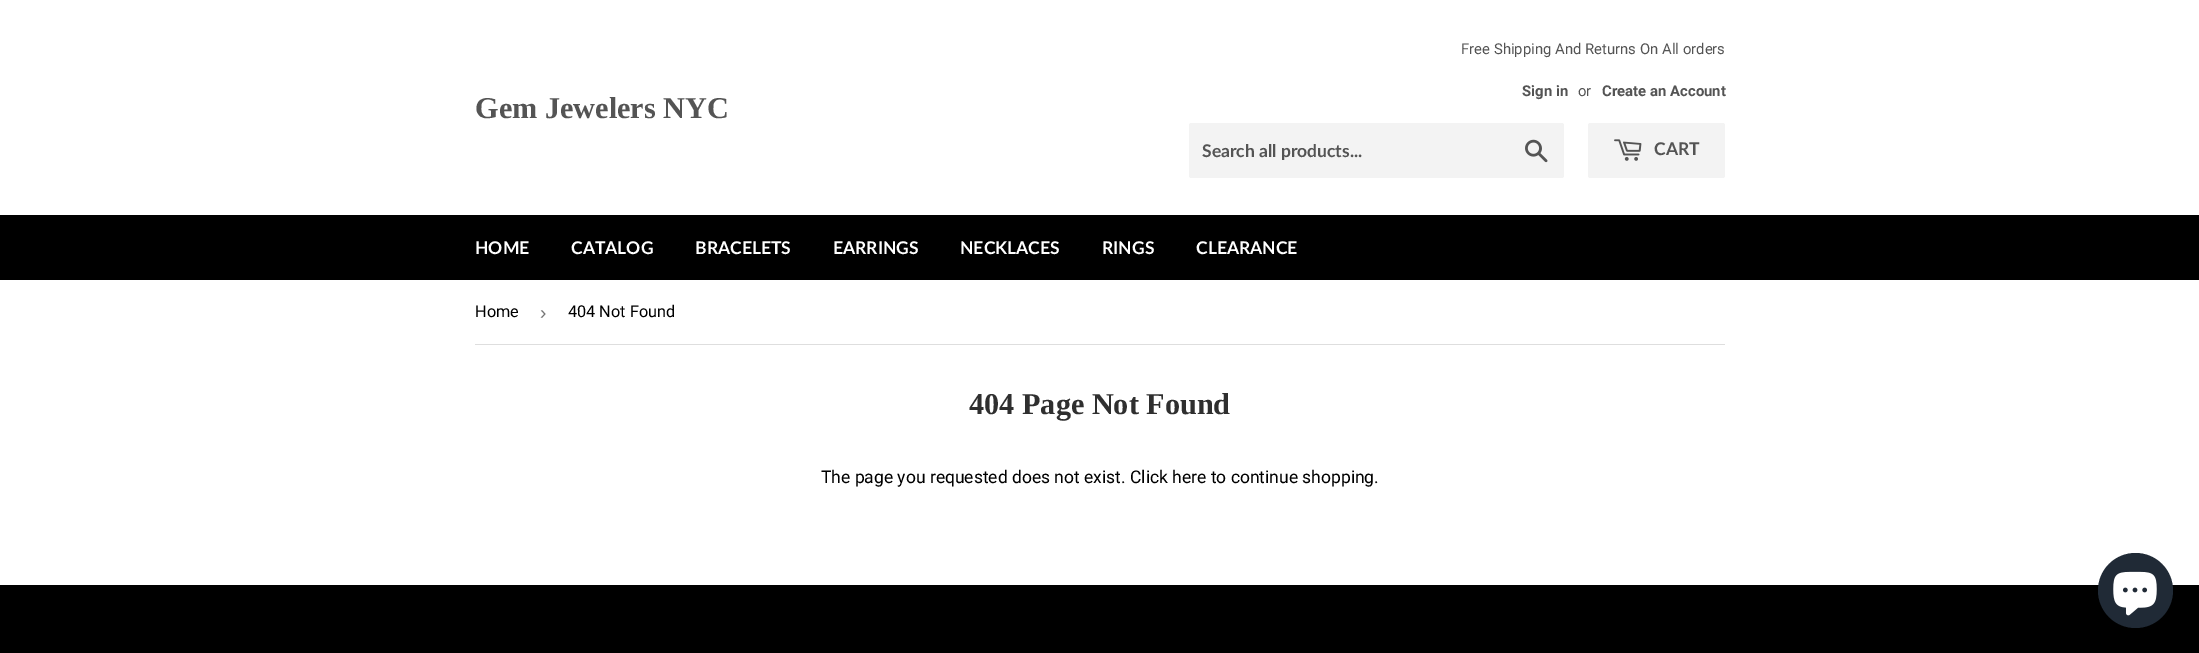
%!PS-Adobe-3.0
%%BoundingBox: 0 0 2199 653
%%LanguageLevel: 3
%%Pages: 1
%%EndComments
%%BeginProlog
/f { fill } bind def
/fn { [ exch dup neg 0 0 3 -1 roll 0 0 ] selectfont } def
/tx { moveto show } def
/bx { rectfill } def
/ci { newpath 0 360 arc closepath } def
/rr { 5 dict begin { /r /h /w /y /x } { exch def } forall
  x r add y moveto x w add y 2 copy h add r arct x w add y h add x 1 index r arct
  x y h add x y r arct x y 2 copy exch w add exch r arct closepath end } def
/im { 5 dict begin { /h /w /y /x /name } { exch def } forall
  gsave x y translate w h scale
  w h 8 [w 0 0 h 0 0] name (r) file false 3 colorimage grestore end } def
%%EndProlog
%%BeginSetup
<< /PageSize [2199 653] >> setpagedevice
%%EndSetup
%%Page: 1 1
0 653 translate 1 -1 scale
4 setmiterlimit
1 setgray
0 0 2199 653 bx
/LiberationSerif-Bold 30.25 fn
0.329 setgray
(Gem Jewelers NYC) 475 118 tx
/Roboto-Regular 14.9 fn
(Free Shipping And Returns On All orders) 1461 54 tx
/Roboto-Bold 14.9 fn
(Sign in) 1522 96 tx
/Roboto-Regular 14.9 fn
(or) 1578 96 tx
/Roboto-Bold 14.9 fn
(Create an Account) 1602 96 tx
0.953 setgray
1189 123 375 55 2.5 rr f
/Lato-Bold 17.5 fn
0.329 setgray
(Search all products...) 1202 157 tx
(image0.raw) 1525 139 23 24 im
0.953 setgray
1588 123 137 55 2.5 rr f
(image1.raw) 1614 139 28 22 im
0.329 setgray
(CART) 1654 155 tx
0 setgray
0 215 2199 65 bx
1 setgray
(HOME) 475 254 tx
(CATALOG) 571 254 tx
(BRACELETS) 695 254 tx
(EARRINGS) 833 254 tx
(NECKLACES) 960 254 tx
(RINGS) 1102 254 tx
(CLEARANCE) 1196 254 tx
0.871 setgray
475 344 1250 1 bx
/Roboto-Regular 16.25 fn
0 setgray
(Home) 475 317 tx
/LiberationSans-Regular 19 fn
0.463 setgray
(›) 540 319 tx
/Roboto-Regular 16.25 fn
0 setgray
(404 Not Found) 568 317 tx
/LiberationSerif-Bold 30.25 fn
0.184 setgray
(404 Page Not Found) 969 414 tx
/Roboto-Regular 17.5 fn
0 setgray
(The page you requested does not exist. Click here to continue shopping.) 821 483 tx
0 585 2199 68 bx
0.125 0.165 0.212 setrgbcolor
2135.5 590.5 37.5 ci f
(image2.raw) 2113 571 44 45 im
showpage
%%EOF
